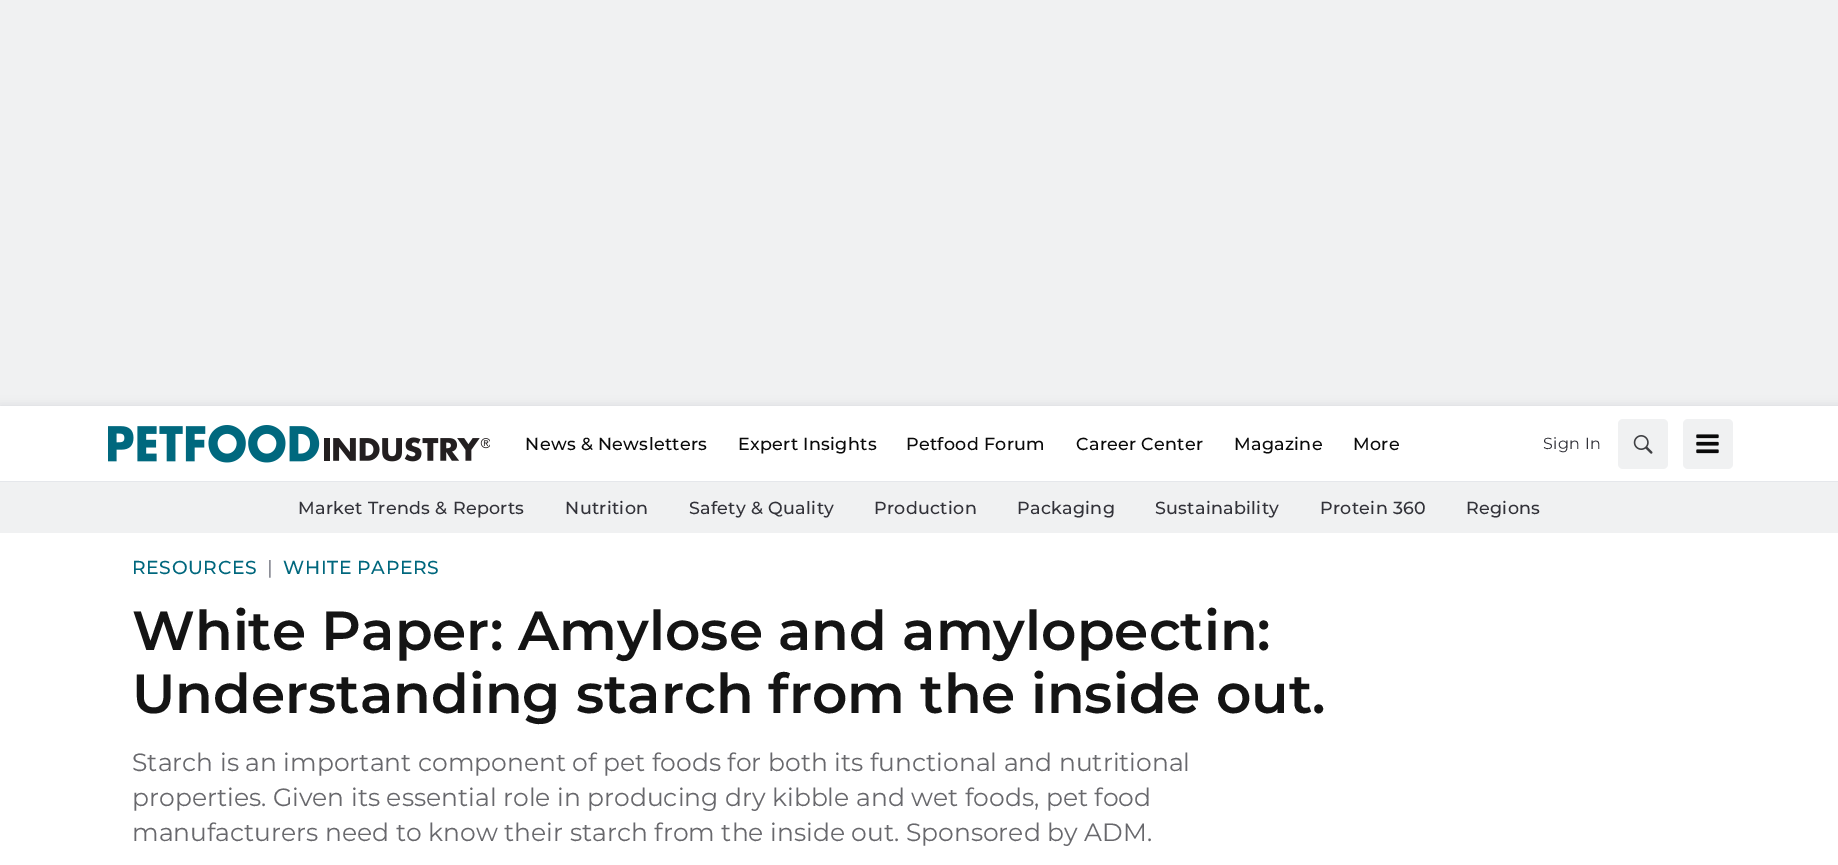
%!PS-Adobe-3.0
%%BoundingBox: 0 0 1838 865
%%LanguageLevel: 3
%%Pages: 1
%%EndComments
%%BeginProlog
/m { moveto } bind def
/f { fill } bind def
/fn { [ exch dup neg 0 0 3 -1 roll 0 0 ] selectfont } def
/tx { moveto show } def
/bx { rectfill } def
/al { dup .setfillconstantalpha .setstrokeconstantalpha } def
/rr { 5 dict begin { /r /h /w /y /x } { exch def } forall
  x r add y moveto x w add y 2 copy h add r arct x w add y h add x 1 index r arct
  x y h add x y r arct x y 2 copy exch w add exch r arct closepath end } def
/sh { 12 dict begin { /a /b /q /h /w /y /x } { exch def } forall gsave /was 0 def
  9 -2 -9 { dup b mul 4 div /e exch def 1 sub .425 mul 2.718 exch exp 1 add a .99 .min exch div /now exch def
    1 1 now sub 1 was sub div sub al /was now def
    w h .min e 2 mul add 0 gt { x e sub y e sub w e 2 mul add h e 2 mul add
      q e add b .6 mul add w h .min 2 div e add .min 0 .max rr fill } if } for grestore end } def
/im { 5 dict begin { /h /w /y /x /name } { exch def } forall
  gsave x y translate w h scale
  w h 8 [w 0 0 h 0 0] name (r) file false 3 colorimage grestore end } def
%%EndProlog
%%BeginSetup
<< /PageSize [1838 865] /PageUsesTransparency true >> setpagedevice
%%EndSetup
%%Page: 1 1
0 .pushpdf14devicefilter
0 865 translate 1 -1 scale
4 setmiterlimit
1 setgray
0 0 1838 865 bx
0.941 0.945 0.949 setrgbcolor
0 0 1838 406 bx
0.471 0.471 0.549 setrgbcolor
0 406 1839 75 0 5 0.2 sh
1 setgray
0 406 1838 75 bx
(image0.raw) 108 425 382 38 im
/Montserrat-Medium 17.5 fn
0.039 setgray
525 450 m 0.3 0 (News & Newsletters) ashow
738 450 m 0.3 0 (Expert Insights) ashow
906 450 m 0.3 0 (Petfood Forum) ashow
1076 450 m 0.3 0 (Career Center) ashow
1234 450 m 0.3 0 (Magazine) ashow
1353 450 m 0.3 0 (More) ashow
/Montserrat-Regular 16 fn
0.196 0.196 0.224 setrgbcolor
1543 449 m 0.3 0 (Sign In) ashow
0.941 0.945 0.949 setrgbcolor
1618 419 50 50 5 rr f
(image1.raw) 1633 435 20 19 im
1683 419 50 50 5 rr f
(image2.raw) 1696 434 23 20 im
0 482 1838 51 bx
0.898 0.906 0.922 setrgbcolor
0 481 1838 1 bx
/Montserrat-Medium 17.5 fn
0.196 0.196 0.224 setrgbcolor
298 514 m 0.3 0 (Market Trends & Reports) ashow
565 514 m 0.3 0 (Nutrition) ashow
689 514 m 0.3 0 (Safety & Quality) ashow
874 514 m 0.3 0 (Production) ashow
1017 514 m 0.3 0 (Packaging) ashow
1155 514 m 0.3 0 (Sustainability) ashow
1320 514 m 0.3 0 (Protein 360) ashow
1466 514 m 0.3 0 (Regions) ashow
/Montserrat-Medium 18.75 fn
0 0.404 0.49 setrgbcolor
132 574 m 0.6 0 (RESOURCES) ashow
0.549 0.557 0.592 setrgbcolor
267 574 m 0.6 0 (|) ashow
0 0.404 0.49 setrgbcolor
283 574 m 0.6 0 (WHITE PAPERS) ashow
/Montserrat-SemiBold 55 fn
0.078 setgray
(White Paper: Amylose and amylopectin:) 132 650 tx
(Understanding starch from the inside out.) 132 713 tx
/Montserrat-Regular 25 fn
0.408 0.408 0.424 setrgbcolor
(Starch is an important component of pet foods for both its functional and nutritional) 132 771 tx
(properties. Given its essential role in producing dry kibble and wet foods, pet food) 132 806 tx
(manufacturers need to know their starch from the inside out. Sponsored by ADM.) 132 841 tx
.poppdf14devicefilter showpage
%%EOF
